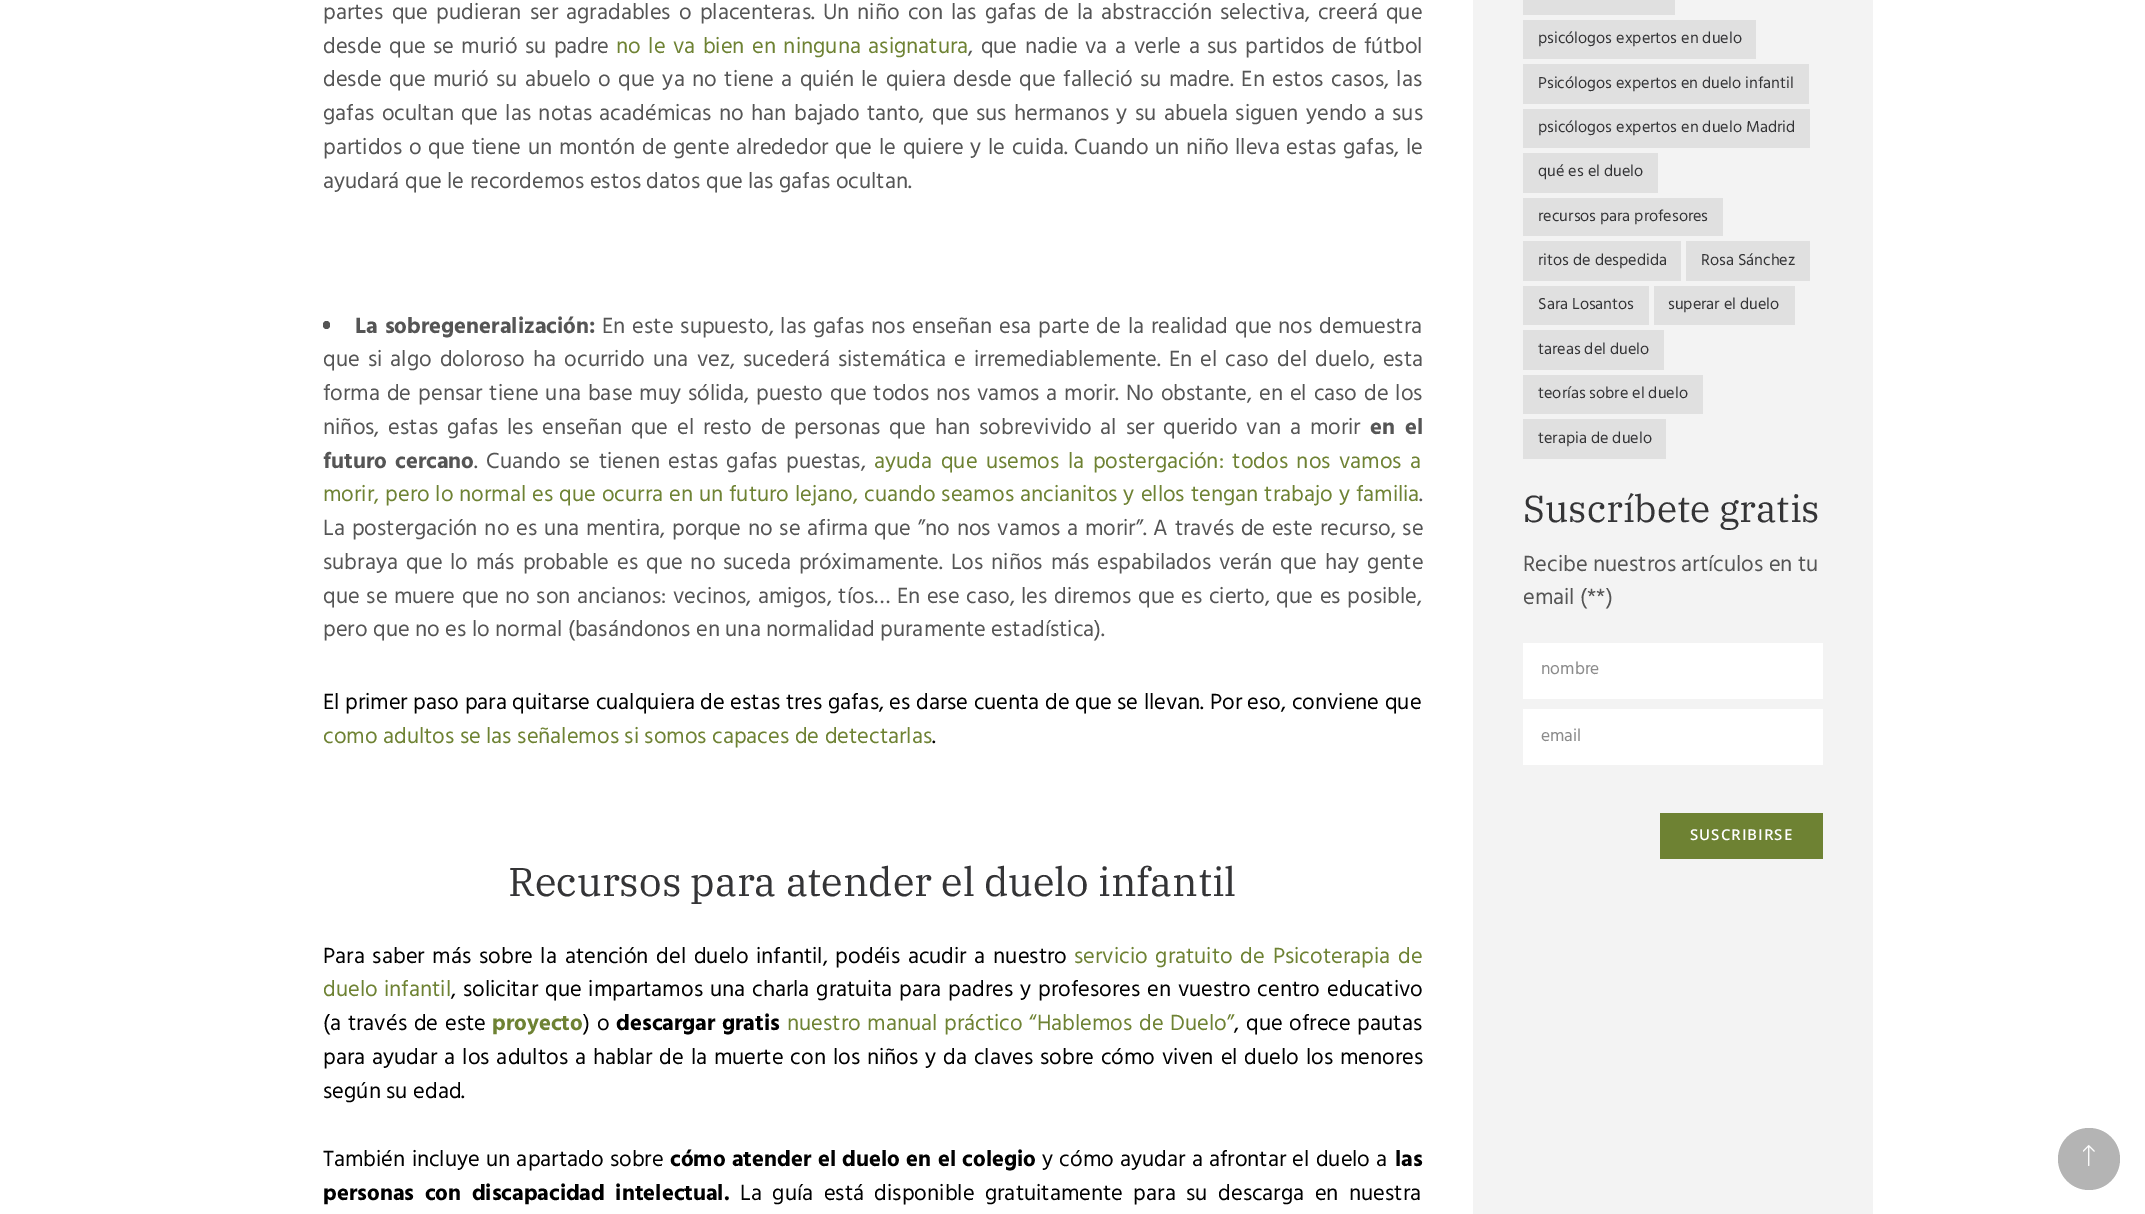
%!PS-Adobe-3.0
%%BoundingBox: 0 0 2145 1214
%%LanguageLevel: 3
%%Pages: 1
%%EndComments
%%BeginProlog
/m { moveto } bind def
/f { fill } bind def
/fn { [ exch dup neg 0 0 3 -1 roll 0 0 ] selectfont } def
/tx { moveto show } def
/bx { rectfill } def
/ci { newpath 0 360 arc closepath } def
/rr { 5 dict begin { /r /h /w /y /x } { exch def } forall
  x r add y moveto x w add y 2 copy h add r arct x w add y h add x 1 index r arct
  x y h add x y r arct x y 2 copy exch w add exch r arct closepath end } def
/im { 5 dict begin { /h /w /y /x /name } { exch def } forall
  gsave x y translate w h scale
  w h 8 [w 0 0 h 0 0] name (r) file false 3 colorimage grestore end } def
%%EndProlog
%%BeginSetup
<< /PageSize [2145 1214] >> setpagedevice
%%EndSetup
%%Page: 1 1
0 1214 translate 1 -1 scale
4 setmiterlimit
1 setgray
0 0 2145 1214 bx
/Hind-Regular 22.5 fn
0.333 setgray
323 19 m 2.6 0 32 (partes que pudieran ser agradables o placenteras. Un niño con las gafas de la abstracción selectiva, creerá que) widthshow
323 53 m 2 0 32 (desde que se murió su padre) widthshow
0.431 0.51 0.2 setrgbcolor
616 53 m 2 0 32 (no le va bien en ninguna asignatura) widthshow
0.333 setgray
968 53 m 2 0 32 (, que nadie va a verle a sus partidos de fútbol) widthshow
323 86 m 2 0 32 (desde que murió su abuelo o que ya no tiene a quién le quiera desde que falleció su madre. En estos casos, las) widthshow
323 120 m 2 0 32 (gafas ocultan que las notas académicas no han bajado tanto, que sus hermanos y su abuela siguen yendo a sus) widthshow
323 154 m 1.25 0 32 (partidos o que tiene un montón de gente alrededor que le quiere y le cuida. Cuando un niño lleva estas gafas, le) widthshow
(ayudará que le recordemos estos datos que las gafas ocultan.) 323 188 tx
323 321 7 8 3.5 rr f
/Hind-Bold 22.5 fn
355 333 m 1.4 0 32 (La sobregeneralización:) widthshow
/Hind-Regular 22.5 fn
602 333 m 1.4 0 32 (En este supuesto, las gafas nos enseñan esa parte de la realidad que nos demuestra) widthshow
323 366 m 2.6 0 32 (que si algo doloroso ha ocurrido una vez, sucederá sistemática e irremediablemente. En el caso del duelo, esta) widthshow
323 400 m 1.4 0 32 (forma de pensar tiene una base muy sólida, puesto que todos nos vamos a morir. No obstante, en el caso de los) widthshow
323 434 m 3.4 0 32 (niños, estas gafas les enseñan que el resto de personas que han sobrevivido al ser querido van a morir) widthshow
/Hind-Bold 22.5 fn
1370 434 m 4 0 32 (en el) widthshow
323 468 m 3 0 32 (futuro cercano) widthshow
/Hind-Regular 22.5 fn
474 468 m 3 0 32 (. Cuando se tienen estas gafas puestas,) widthshow
0.431 0.51 0.2 setrgbcolor
874 468 m 3 0 32 (ayuda que usemos la postergación: todos nos vamos a) widthshow
323 501 m 0.5 0 32 (morir, pero lo normal es que ocurra en un futuro lejano, cuando seamos ancianitos y ellos tengan trabajo y familia) widthshow
0.333 setgray
(.) 1419 501 tx
323 535 m 1.25 0 32 (La postergación no es una mentira, porque no se afirma que ”no nos vamos a morir”. A través de este recurso, se) widthshow
323 569 m 2.4 0 32 (subraya que lo más probable es que no suceda próximamente. Los niños más espabilados verán que hay gente) widthshow
323 603 m 1.1 0 32 (que se muere que no son ancianos: vecinos, amigos, tíos… En ese caso, les diremos que es cierto, que es posible,) widthshow
(pero que no es lo normal \(basándonos en una normalidad puramente estadística\).) 323 636 tx
0 setgray
(El primer paso para quitarse cualquiera de estas tres gafas, es darse cuenta de que se llevan. Por eso, conviene que) 323 709 tx
0.431 0.51 0.2 setrgbcolor
(como adultos se las señalemos si somos capaces de detectarlas) 323 743 tx
0 setgray
(.) 932 743 tx
/IBMPlexSerif-Regular 40 fn
0.204 0.204 0.212 setrgbcolor
(Recursos para atender el duelo infantil) 508 896 tx
/Hind-Regular 22.5 fn
0 setgray
323 963 m 2.25 0 32 (Para saber más sobre la atención del duelo infantil, podéis acudir a nuestro) widthshow
0.431 0.51 0.2 setrgbcolor
1074 963 m 2.25 0 32 (servicio gratuito de Psicoterapia de) widthshow
323 996 m 1 0 32 (duelo infantil) widthshow
0 setgray
451 996 m 1.4 0 32 (, solicitar que impartamos una charla gratuita para padres y profesores en vuestro centro educativo) widthshow
323 1030 m 1.25 0 32 (\(a través de este) widthshow
/Hind-Bold 22.5 fn
0.431 0.51 0.2 setrgbcolor
(proyecto) 492 1030 tx
/Hind-Regular 22.5 fn
0 setgray
583 1030 m 1.25 0 32 (\) o) widthshow
/Hind-Bold 22.5 fn
616 1030 m 1 0 32 (descargar gratis) widthshow
/Hind-Regular 22.5 fn
0.431 0.51 0.2 setrgbcolor
787 1030 m 1.25 0 32 (nuestro manual práctico “Hablemos de Duelo”) widthshow
0 setgray
1234 1030 m 1.25 0 32 (, que ofrece pautas) widthshow
323 1064 m 1.4 0 32 (para ayudar a los adultos a hablar de la muerte con los niños y da claves sobre cómo viven el duelo los menores) widthshow
(según su edad.) 323 1098 tx
323 1166 m 0.75 0 32 (También incluye un apartado sobre) widthshow
/Hind-Bold 22.5 fn
670 1166 m 0.75 0 32 (cómo atender el duelo en el colegio) widthshow
/Hind-Regular 22.5 fn
1042 1166 m 0.75 0 32 (y cómo ayudar a afrontar el duelo a) widthshow
/Hind-Bold 22.5 fn
(las) 1395 1166 tx
323 1200 m 5 0 32 (personas con discapacidad intelectual.) widthshow
/Hind-Regular 22.5 fn
740 1200 m 5 0 32 (La guía está disponible gratuitamente para su descarga en nuestra) widthshow
0.953 setgray
1473 0 400 1214 bx
0.878 setgray
1523 0 152 15 bx
1523 20 233 39 bx
/Hind-Regular 16.25 fn
0.204 0.204 0.212 setrgbcolor
(psicólogos expertos en duelo) 1538 43 tx
0.878 setgray
1523 64 286 40 bx
0.204 0.204 0.212 setrgbcolor
(Psicólogos expertos en duelo infantil) 1538 88 tx
0.878 setgray
1523 109 287 39 bx
0.204 0.204 0.212 setrgbcolor
(psicólogos expertos en duelo Madrid) 1538 132 tx
0.878 setgray
1523 153 135 40 bx
0.204 0.204 0.212 setrgbcolor
(qué es el duelo) 1538 176 tx
0.878 setgray
1523 198 200 38 bx
0.204 0.204 0.212 setrgbcolor
(recursos para profesores) 1538 221 tx
0.878 setgray
1523 241 158 40 bx
0.204 0.204 0.212 setrgbcolor
(ritos de despedida) 1538 265 tx
0.878 setgray
1686 241 124 40 bx
0.204 0.204 0.212 setrgbcolor
(Rosa Sánchez) 1701 265 tx
0.878 setgray
1523 286 126 39 bx
0.204 0.204 0.212 setrgbcolor
(Sara Losantos) 1538 309 tx
0.878 setgray
1654 286 141 39 bx
0.204 0.204 0.212 setrgbcolor
(superar el duelo) 1668 309 tx
0.878 setgray
1523 330 141 40 bx
0.204 0.204 0.212 setrgbcolor
(tareas del duelo) 1538 354 tx
0.878 setgray
1523 375 180 39 bx
0.204 0.204 0.212 setrgbcolor
(teorías sobre el duelo) 1538 398 tx
0.878 setgray
1523 419 143 40 bx
0.204 0.204 0.212 setrgbcolor
(terapia de duelo) 1538 443 tx
/IBMPlexSerif-Regular 37.5 fn
(Suscríbete gratis) 1523 522 tx
/Hind-Regular 22.5 fn
0.333 setgray
(Recibe nuestros artículos en tu) 1523 571 tx
(email \(**\)) 1523 604 tx
1 setgray
1523 643 300 56 bx
/Hind-Regular 17.5 fn
0.549 setgray
(nombre) 1541 674 tx
1 setgray
1523 709 300 56 bx
0.549 setgray
(email) 1541 741 tx
0.431 0.51 0.2 setrgbcolor
1660 813 163 46 bx
/OpenSans-SemiBold 15 fn
1 setgray
1690 840 m 1 0 (SUSCRIBIRSE) ashow
0.706 setgray
2089 1159 31 ci f
(image0.raw) 2083 1145 12 21 im
showpage
%%EOF
